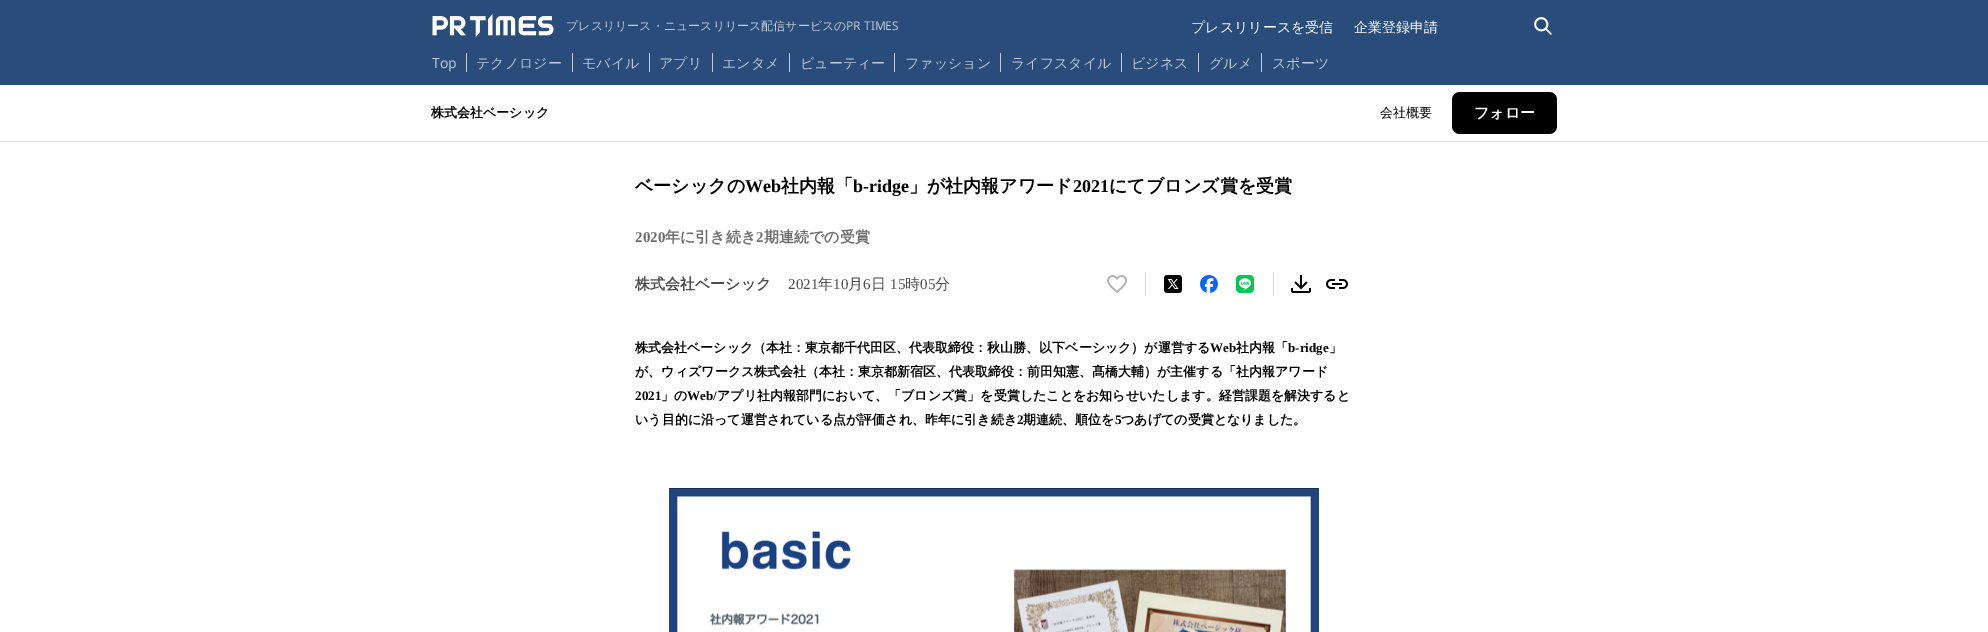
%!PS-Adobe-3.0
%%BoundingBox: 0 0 1988 632
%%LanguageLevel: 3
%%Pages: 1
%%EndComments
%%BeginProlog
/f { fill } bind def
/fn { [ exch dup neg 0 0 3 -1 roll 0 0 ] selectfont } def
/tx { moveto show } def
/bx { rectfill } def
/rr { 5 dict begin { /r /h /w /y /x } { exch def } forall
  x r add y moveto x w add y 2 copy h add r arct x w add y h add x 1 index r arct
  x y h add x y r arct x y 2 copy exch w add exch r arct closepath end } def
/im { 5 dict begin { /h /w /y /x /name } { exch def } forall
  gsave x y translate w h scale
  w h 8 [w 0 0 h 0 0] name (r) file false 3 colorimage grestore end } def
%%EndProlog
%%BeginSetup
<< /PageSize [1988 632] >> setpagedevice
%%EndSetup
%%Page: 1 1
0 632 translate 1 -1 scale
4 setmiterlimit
1 setgray
0 0 1988 632 bx
0.161 0.298 0.478 setrgbcolor
0 0 1988 85 bx
(image0.raw) 432 14 122 23 im
/WenQuanYiZenHei-Medium 12 fn
0.749 0.788 0.843 setrgbcolor
(プレスリリース・ニュースリリース配信サービスの) 566 30 tx
/NotoSans-Regular 12 fn
(PR TIMES) 846 30 tx
/WenQuanYiZenHei-Medium 14 fn
1 setgray
(プレスリリースを受信) 1191 32 tx
(企業登録申請) 1354 32 tx
(image1.raw) 1534 17 18 18 im
/NotoSans-Regular 14 fn
0.749 0.788 0.843 setrgbcolor
(Top) 432 68 tx
466 53 1 19 bx
/WenQuanYiZenHei-Medium 14 fn
(テクノロジー) 476 68 tx
572 53 1 19 bx
(モバイル) 582 68 tx
649 53 1 19 bx
(アプリ) 659 68 tx
712 53 1 19 bx
(エンタメ) 722 68 tx
789 53 1 19 bx
(ビューティー) 800 68 tx
894 53 1 19 bx
(ファッション) 905 68 tx
1000 53 1 19 bx
(ライフスタイル) 1011 68 tx
1121 53 1 19 bx
(ビジネス) 1131 68 tx
1198 53 1 19 bx
(グルメ) 1209 68 tx
1261 53 1 19 bx
(スポーツ) 1272 68 tx
0.878 setgray
0 141 1988 1 bx
/WenQuanYiZenHei-Bold 13 fn
0 setgray
(株式会社ベーシック) 431 117 tx
/WenQuanYiZenHei-Medium 13 fn
(会社概要) 1380 117 tx
1452 92 105 42 8 rr f
/WenQuanYiZenHei-Bold 15 fn
1 setgray
(フォロー) 1474 118 tx
/WenQuanYiZenHei-Bold 18 fn
0 setgray
(ベーシックの) 635 192 tx
/LiberationSerif-Bold 18 fn
(Web) 745 192 tx
/WenQuanYiZenHei-Bold 18 fn
(社内報「) 781 192 tx
/LiberationSerif-Bold 18 fn
(b-ridge) 853 192 tx
/WenQuanYiZenHei-Bold 18 fn
(」が社内報アワード) 909 192 tx
/LiberationSerif-Bold 18 fn
(2021) 1073 192 tx
/WenQuanYiZenHei-Bold 18 fn
(にてブロンズ賞を受賞) 1109 192 tx
/LiberationSerif-Bold 15 fn
0.427 setgray
(2020) 635 242 tx
/WenQuanYiZenHei-Bold 15 fn
(年に引き続き) 665 242 tx
/LiberationSerif-Bold 15 fn
(2) 756 242 tx
/WenQuanYiZenHei-Bold 15 fn
(期連続での受賞) 764 242 tx
0.302 setgray
(株式会社ベーシック) 635 289 tx
/LiberationSerif-Regular 15 fn
(2021) 788 289 tx
/WenQuanYiZenHei-Medium 15 fn
(年) 818 289 tx
/LiberationSerif-Regular 15 fn
(10) 833 289 tx
/WenQuanYiZenHei-Medium 15 fn
(月) 848 289 tx
/LiberationSerif-Regular 15 fn
(6) 863 289 tx
/WenQuanYiZenHei-Medium 15 fn
(日) 871 289 tx
/LiberationSerif-Regular 15 fn
(15) 890 289 tx
/WenQuanYiZenHei-Medium 15 fn
(時) 905 289 tx
/LiberationSerif-Regular 15 fn
(05) 920 289 tx
/WenQuanYiZenHei-Medium 15 fn
(分) 935 289 tx
(image2.raw) 1107 275 20 18 im
0.851 setgray
1145 272 1 24 bx
(image3.raw) 1164 275 18 18 im
(image4.raw) 1200 275 18 18 im
(image5.raw) 1236 275 18 18 im
1273 272 1 24 bx
(image6.raw) 1291 275 20 18 im
(image7.raw) 1326 279 22 10 im
/WenQuanYiZenHei-Bold 13 fn
0 setgray
(株式会社ベーシック（本社：東京都千代田区、代表取締役：秋山勝、以下ベーシック）が運営する) 635 352 tx
/LiberationSerif-Bold 13 fn
(Web) 1210 352 tx
/WenQuanYiZenHei-Bold 13 fn
(社内報「) 1236 352 tx
/LiberationSerif-Bold 13 fn
(b-ridge) 1288 352 tx
/WenQuanYiZenHei-Bold 13 fn
(」) 1329 352 tx
(が、ウィズワークス株式会社（本社：東京都新宿区、代表取締役：前田知憲、髙橋大輔）が主催する「社内報アワード) 635 376 tx
/LiberationSerif-Bold 13 fn
(2021) 635 400 tx
/WenQuanYiZenHei-Bold 13 fn
(」の) 661 400 tx
/LiberationSerif-Bold 13 fn
(Web/) 687 400 tx
/WenQuanYiZenHei-Bold 13 fn
(アプリ社内報部門において、「ブロンズ賞」を受賞したことをお知らせいたします。経営課題を解決すると) 717 400 tx
(いう目的に沿って運営されている点が評価され、昨年に引き続き) 635 424 tx
/LiberationSerif-Bold 13 fn
(2) 1017 424 tx
/WenQuanYiZenHei-Bold 13 fn
(期連続、順位を) 1023 424 tx
/LiberationSerif-Bold 13 fn
(5) 1115 424 tx
/WenQuanYiZenHei-Bold 13 fn
(つあげての受賞となりました。) 1121 424 tx
(image8.raw) 669 488 650 144 im
showpage
%%EOF
